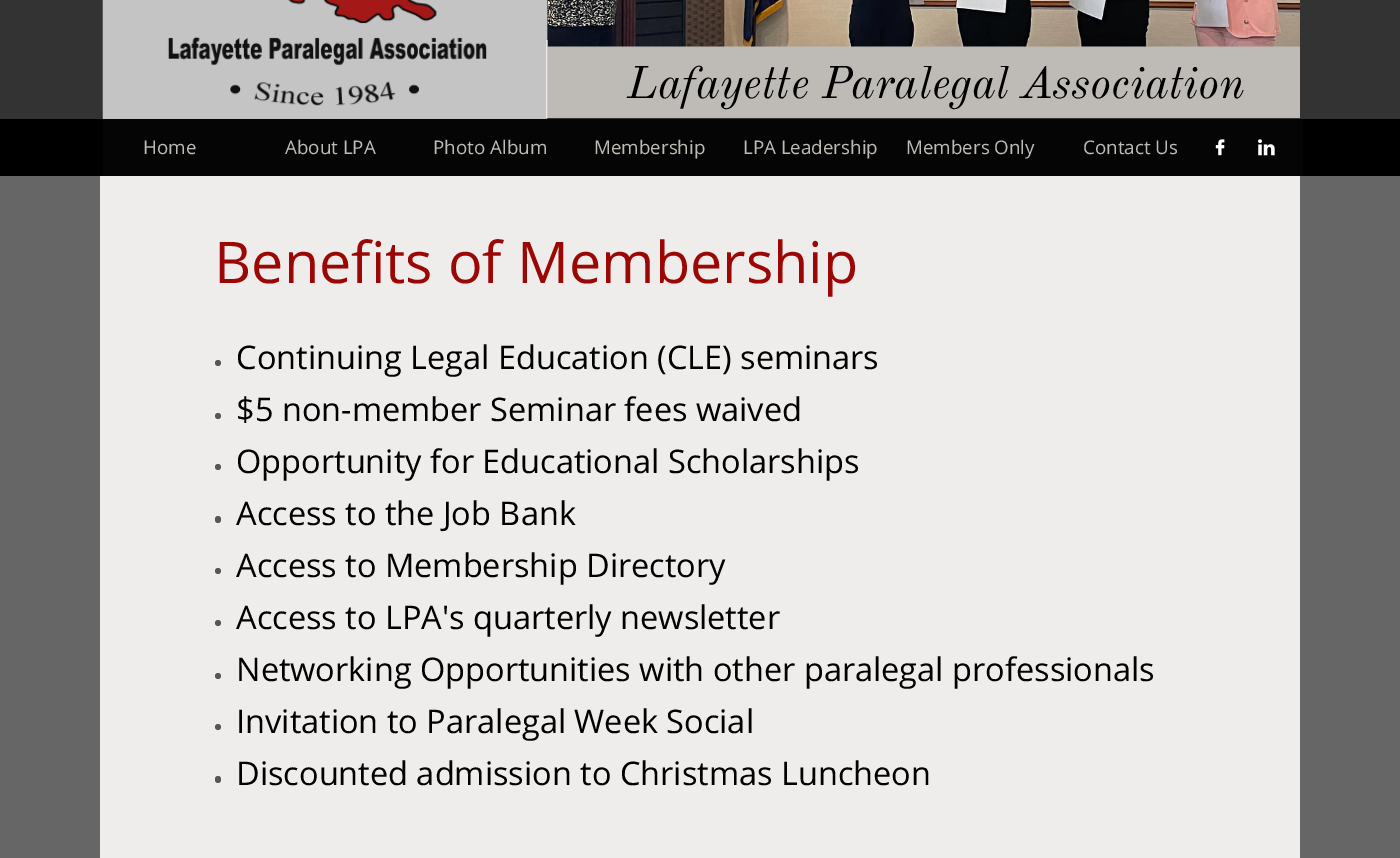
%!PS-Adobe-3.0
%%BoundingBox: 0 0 1400 858
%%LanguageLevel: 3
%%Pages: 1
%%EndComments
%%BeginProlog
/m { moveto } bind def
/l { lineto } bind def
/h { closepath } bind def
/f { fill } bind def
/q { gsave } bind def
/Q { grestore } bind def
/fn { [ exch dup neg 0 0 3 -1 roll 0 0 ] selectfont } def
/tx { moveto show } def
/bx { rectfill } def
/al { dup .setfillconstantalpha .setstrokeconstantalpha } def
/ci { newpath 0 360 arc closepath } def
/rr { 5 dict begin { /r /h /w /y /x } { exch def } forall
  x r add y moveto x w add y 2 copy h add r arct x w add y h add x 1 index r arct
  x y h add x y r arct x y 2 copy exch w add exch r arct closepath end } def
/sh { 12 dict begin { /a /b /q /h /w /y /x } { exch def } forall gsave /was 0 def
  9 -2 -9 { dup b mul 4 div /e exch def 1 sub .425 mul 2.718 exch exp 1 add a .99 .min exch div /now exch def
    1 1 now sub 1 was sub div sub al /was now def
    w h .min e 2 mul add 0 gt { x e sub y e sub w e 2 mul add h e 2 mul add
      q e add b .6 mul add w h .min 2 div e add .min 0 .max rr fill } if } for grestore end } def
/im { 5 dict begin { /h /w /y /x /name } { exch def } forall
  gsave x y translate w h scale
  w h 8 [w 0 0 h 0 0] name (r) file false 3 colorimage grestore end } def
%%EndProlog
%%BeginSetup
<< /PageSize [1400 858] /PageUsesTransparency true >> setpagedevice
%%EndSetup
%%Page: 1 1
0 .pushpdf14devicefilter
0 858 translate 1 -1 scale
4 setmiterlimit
0 setgray
0 0 1400 858 bx
0.2 setgray
0 0 1400 119 bx
q
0 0 m 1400 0 l 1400 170 l 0 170 l h -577 -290 m 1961 -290 l 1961 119 l -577 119 l h eoclip newpath
0 setgray
-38 -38 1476 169 0 12.5 1 sh
Q
0.745 0.733 0.714 setrgbcolor
546 40 754 78 bx
(image1.raw) 547 0 753 47 im
(image0.raw) 102 0 446 119 im
/OldStandardTT-Italic 45 fn
0 setgray
(Lafayette Paralegal) 627 98 tx
1021 98 m -2 0 (A) ashow
(ssociation) 1052 98 tx
0.02 setgray
103 119 1200 57 bx
/OpenSans-Regular 18.75 fn
0.745 0.733 0.714 setrgbcolor
(Home) 143 154 tx
(About LPA) 285 154 tx
(Photo Album) 433 154 tx
(Membership) 594 154 tx
(LPA Leadership) 743 154 tx
(Members Only) 906 154 tx
(Contact Us) 1083 154 tx
(image2.raw) 1215 139 10 17 im
(image3.raw) 1258 139 17 17 im
0.4 setgray
0 176 1400 682 bx
0.933 0.929 0.925 setrgbcolor
100 176 1200 682 bx
/OpenSans-Regular 57.5 fn
0.608 0.027 0.02 setrgbcolor
(Benefits of Membership) 214 283 tx
0.349 0.333 0.314 setrgbcolor
218 363 3 ci f
/OpenSans-Regular 32.5 fn
0 setgray
(Continuing Legal Education \(CLE\) seminars) 236 369 tx
0.349 0.333 0.314 setrgbcolor
218 416 3 ci f
0 setgray
($5 non-member Seminar fees waived) 236 421 tx
0.349 0.333 0.314 setrgbcolor
218 467 3 ci f
0 setgray
(Opportunity for Educational Scholarships) 236 473 tx
0.349 0.333 0.314 setrgbcolor
215 516 6 7 3 rr f
0 setgray
(Access to the Job Bank) 236 525 tx
0.349 0.333 0.314 setrgbcolor
218 571 3 ci f
0 setgray
(Access to Membership Directory) 236 577 tx
0.349 0.333 0.314 setrgbcolor
218 623 3 ci f
0 setgray
(Access to LPA's quarterly newsletter) 236 629 tx
0.349 0.333 0.314 setrgbcolor
218 676 3 ci f
0 setgray
(Networking Opportunities with other paralegal professionals) 236 681 tx
0.349 0.333 0.314 setrgbcolor
218 727 3 ci f
0 setgray
(Invitation to Paralegal Week Social) 236 733 tx
0.349 0.333 0.314 setrgbcolor
215 776 6 7 3 rr f
0 setgray
(Discounted admission to Christmas Luncheon) 236 785 tx
.poppdf14devicefilter showpage
%%EOF
